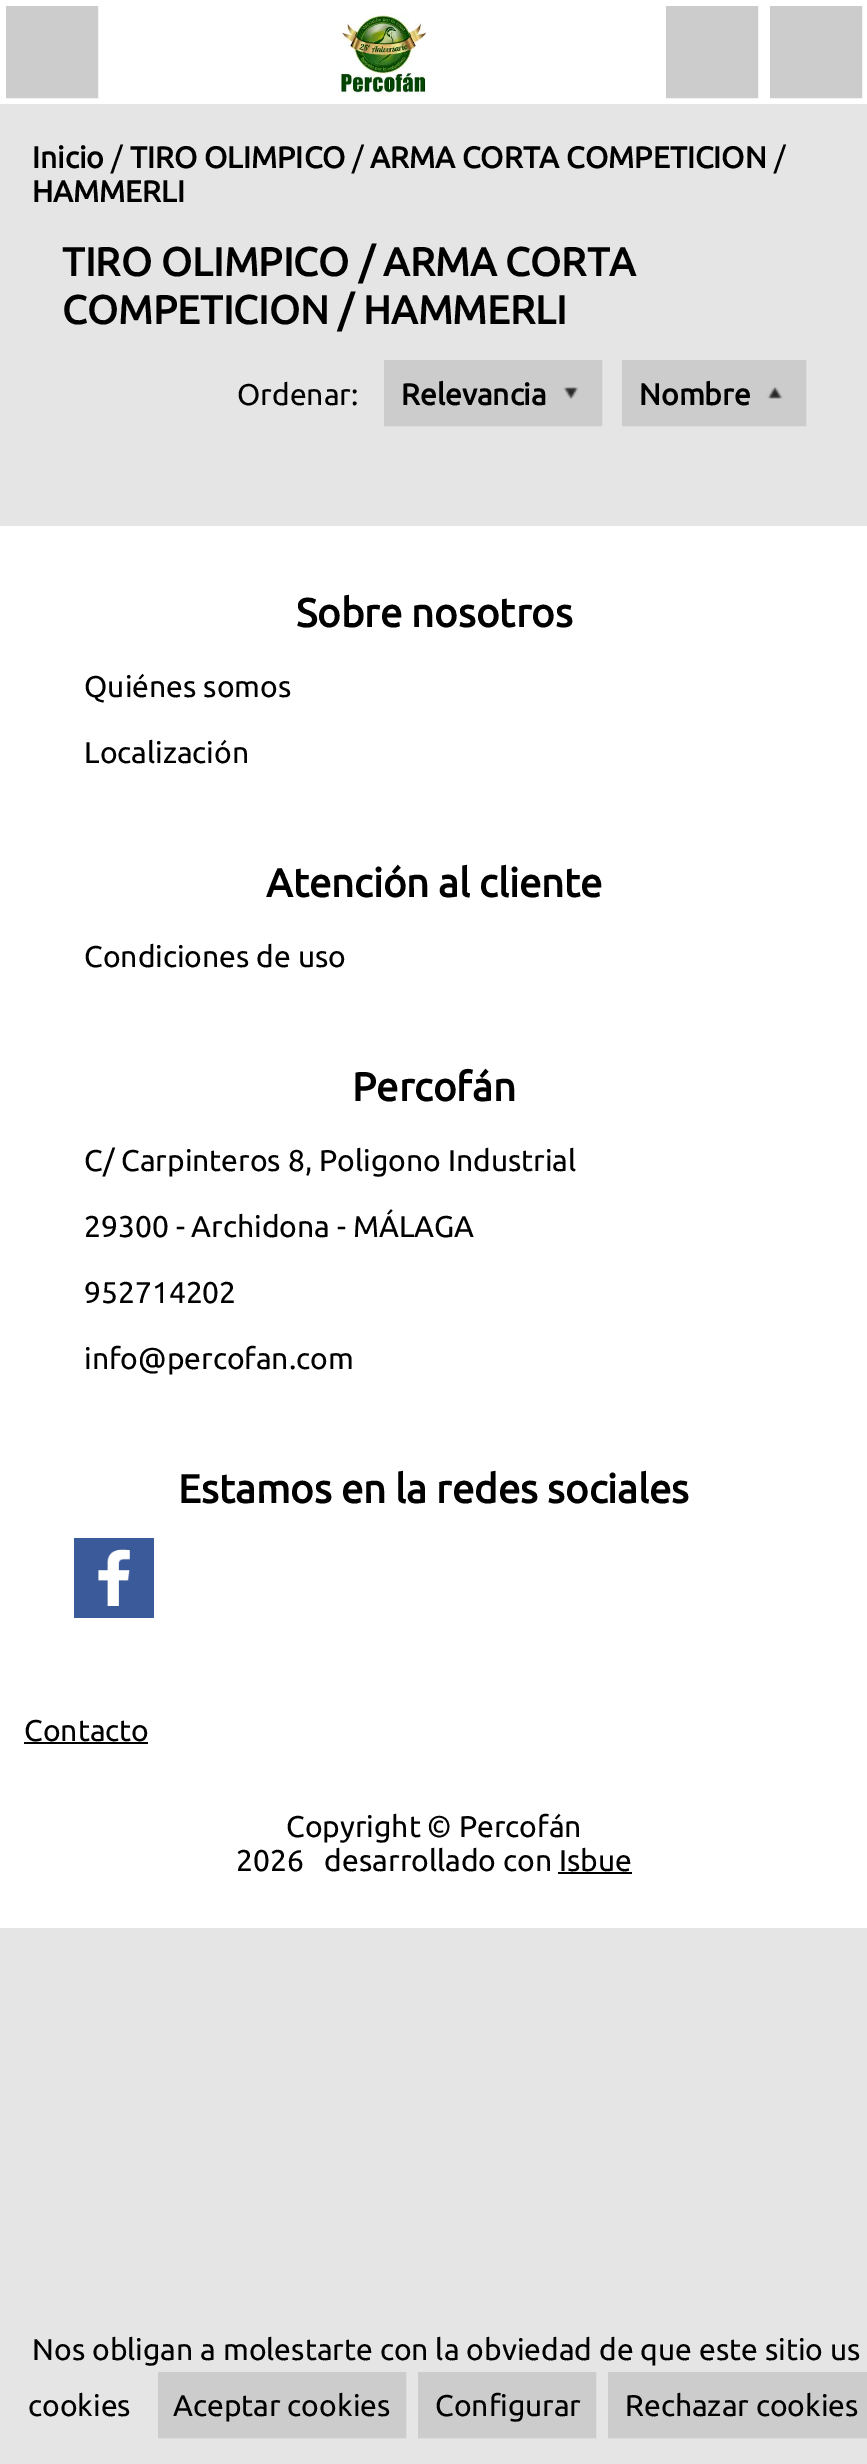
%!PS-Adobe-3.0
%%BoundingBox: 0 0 867 2464
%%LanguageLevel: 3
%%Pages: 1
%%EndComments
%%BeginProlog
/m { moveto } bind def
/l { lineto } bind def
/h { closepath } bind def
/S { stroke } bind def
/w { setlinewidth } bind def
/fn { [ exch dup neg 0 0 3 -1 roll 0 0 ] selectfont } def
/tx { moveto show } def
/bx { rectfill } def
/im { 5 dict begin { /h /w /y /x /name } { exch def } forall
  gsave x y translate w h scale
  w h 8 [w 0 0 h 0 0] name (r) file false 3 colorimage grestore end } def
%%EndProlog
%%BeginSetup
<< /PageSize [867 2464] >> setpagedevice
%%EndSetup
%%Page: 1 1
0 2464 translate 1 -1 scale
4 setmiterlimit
0.898 setgray
0 0 867 2464 bx
1 setgray
0 0 867 104 bx
0.8 setgray
22 22 60 60 bx
16 w
14 14 m 90 14 l 90 90 l 14 90 l h S
(image0.raw) 338 13 90 83 im
682 22 60 60 bx
674 14 m 750 14 l 750 90 l 674 90 l h S
786 22 60 60 bx
778 14 m 854 14 l 854 90 l 778 90 l h S
/Ubuntu-Bold 30 fn
0 setgray
(Inicio) 32 168 tx
/Ubuntu-Regular 30 fn
(/) 111 168 tx
/Ubuntu-Bold 30 fn
(TIRO OLIMPICO) 130 168 tx
/Ubuntu-Regular 30 fn
(/) 352 168 tx
/Ubuntu-Bold 30 fn
(ARMA CORTA COMPETICION) 370 168 tx
/Ubuntu-Regular 30 fn
(/) 774 168 tx
/Ubuntu-Bold 30 fn
(HAMMERLI) 32 202 tx
/Ubuntu-Bold 40 fn
(TIRO OLIMPICO / ARMA CORTA) 62 276 tx
(COMPETICION / HAMMERLI) 62 324 tx
/Ubuntu-Regular 30 fn
(Ordenar:) 237 405 tx
0.8 setgray
400 376 186 34 bx
(image1.raw) 563 387 16 12 im
392 368 m 594 368 l 594 418 l 392 418 l h S
/Ubuntu-Bold 30 fn
0 setgray
(Relevancia) 401 405 tx
0.8 setgray
638 376 152 34 bx
(image2.raw) 767 387 16 12 im
630 368 m 798 368 l 798 418 l 630 418 l h S
0 setgray
(Nombre) 639 405 tx
1 setgray
0 526 867 1402 bx
/Ubuntu-Bold 40 fn
0 setgray
(Sobre nosotros) 296 627 tx
/Ubuntu-Regular 30 fn
(Quiénes somos) 84 697 tx
(Localización) 84 763 tx
/Ubuntu-Bold 40 fn
(Atención al cliente) 266 897 tx
/Ubuntu-Regular 30 fn
(Condiciones de uso) 84 967 tx
/Ubuntu-Bold 40 fn
(Percofán) 352 1101 tx
/Ubuntu-Regular 30 fn
(C/ Carpinteros 8, Poligono Industrial) 84 1171 tx
(29300 - Archidona - MÁLAGA) 84 1237 tx
(952714202) 84 1303 tx
(info@percofan.com) 84 1369 tx
/Ubuntu-Bold 40 fn
(Estamos en la redes sociales) 178 1503 tx
(image3.raw) 74 1538 80 80 im
/Ubuntu-Regular 30 fn
(Contacto) 24 1741 tx
24 1742 124 2 bx
(Copyright © Percofán) 286 1837 tx
(2026   desarrollado con Isbue) 236 1871 tx
558 1872 74 2 bx
(Nos obligan a molestarte con la obviedad de que este sitio us) 32 2360 tx
(cookies) 28 2416 tx
0.8 setgray
174 2388 216 34 bx
166 2380 m 398 2380 l 398 2430 l 166 2430 l h S
0 setgray
(Aceptar cookies) 173 2416 tx
0.8 setgray
434 2388 146 34 bx
426 2380 m 588 2380 l 588 2430 l 426 2430 l h S
0 setgray
(Configurar) 435 2416 tx
0.8 setgray
624 2388 234 34 bx
616 2380 m 866 2380 l 866 2430 l 616 2430 l h S
0 setgray
(Rechazar cookies) 625 2416 tx
showpage
%%EOF
